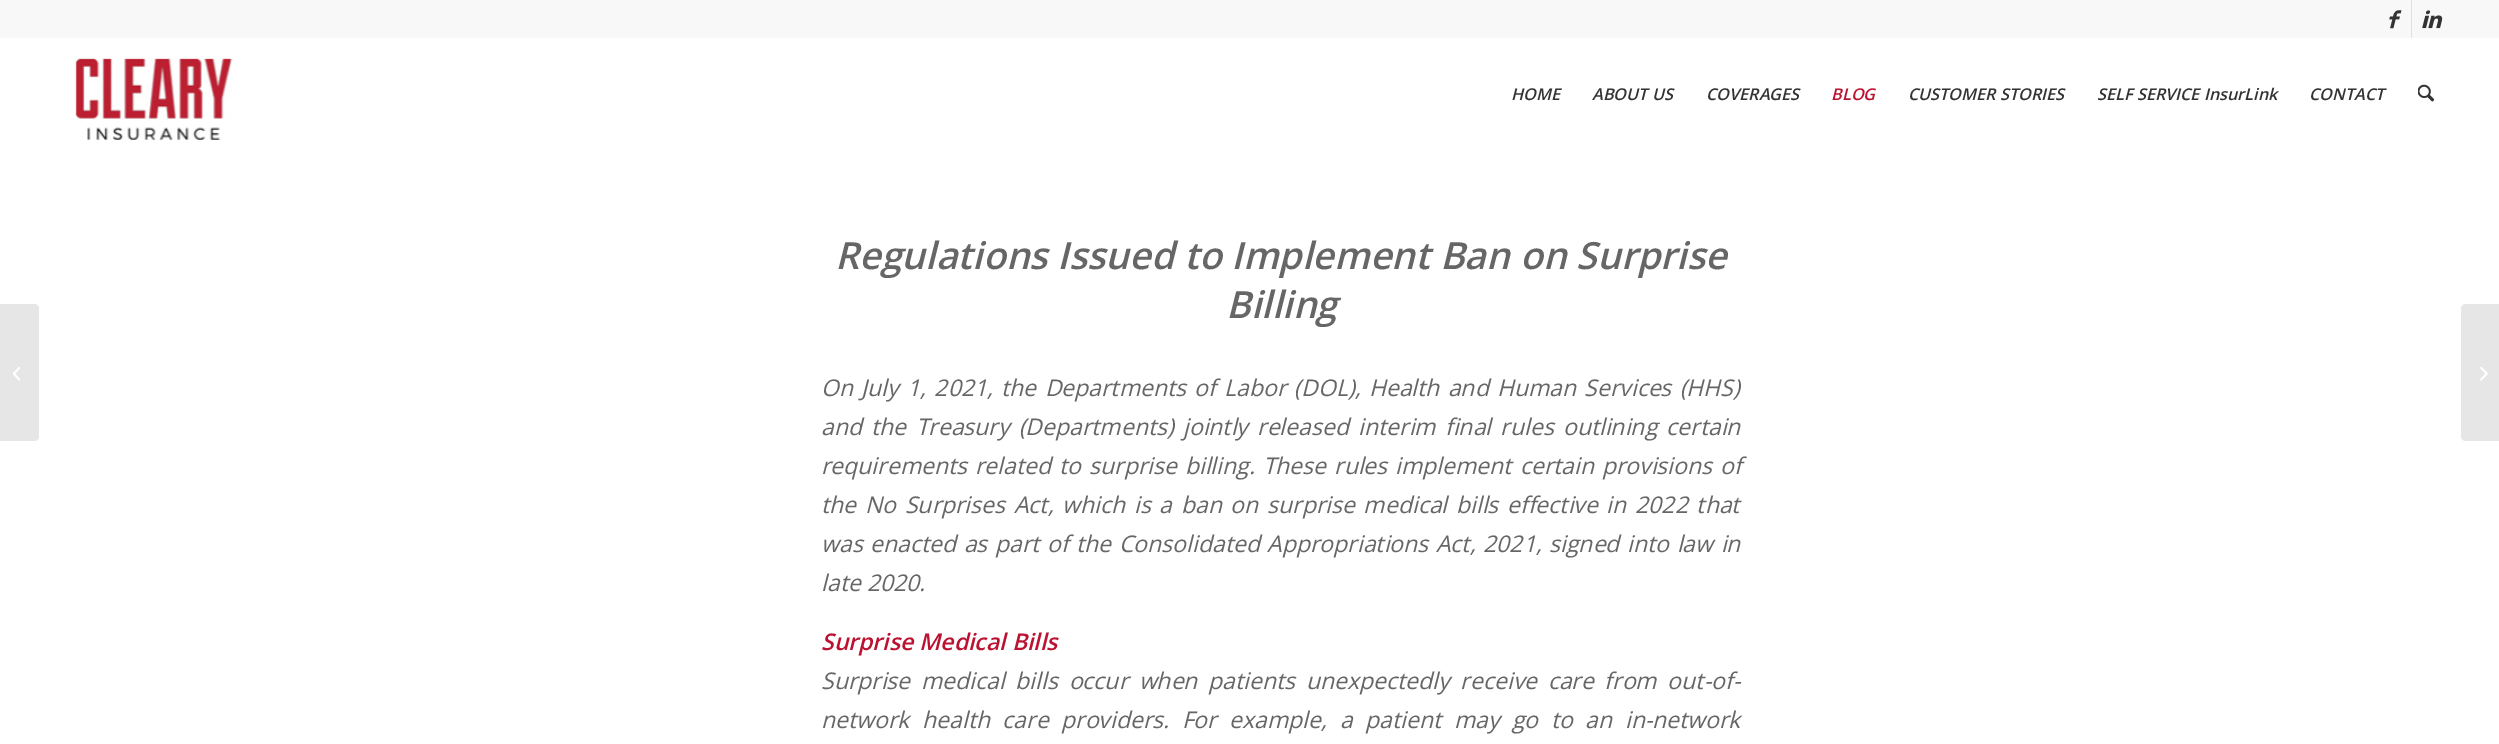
%!PS-Adobe-3.0
%%BoundingBox: 0 0 2499 744
%%LanguageLevel: 3
%%Pages: 1
%%EndComments
%%BeginProlog
/m { moveto } bind def
/l { lineto } bind def
/c { curveto } bind def
/h { closepath } bind def
/f { fill } bind def
/fn { [ exch dup neg 0 0 3 -1 roll 0 0 ] selectfont } def
/tx { moveto show } def
/bx { rectfill } def
/im { 5 dict begin { /h /w /y /x /name } { exch def } forall
  gsave x y translate w h scale
  w h 8 [w 0 0 h 0 0] name (r) file false 3 colorimage grestore end } def
%%EndProlog
%%BeginSetup
<< /PageSize [2499 744] >> setpagedevice
%%EndSetup
%%Page: 1 1
0 744 translate 1 -1 scale
4 setmiterlimit
1 setgray
0 0 2499 744 bx
0.973 setgray
0 0 2499 38 bx
0.882 setgray
2411 0 1 38 bx
(image0.raw) 2389 10 13 19 im
(image1.raw) 2422 10 21 19 im
(image2.raw) 75 58 158 82 im
/OpenSans-SemiBoldItalic 16.25 fn
0.2 setgray
(HOME) 1511 100 tx
(ABOUT US) 1592 100 tx
(COVERAGES) 1706 100 tx
0.733 0.071 0.192 setrgbcolor
(BLOG) 1831 100 tx
0.2 setgray
(CUSTOMER STORIES) 1908 100 tx
(SELF SERVICE InsurLink) 2097 100 tx
(CONTACT) 2309 100 tx
(image3.raw) 2418 84 16 18 im
0.902 setgray
0 304 m 34 304 l 37 304 39 306 39 309 c 39 436 l 39 439 37 441 34 441 c 0 441 l h f
(image4.raw) 13 367 7 14 im
/OpenSans-SemiBoldItalic 37.5 fn
0.4 setgray
(Regulations Issued to Implement Ban on Surprise) 835 269 tx
(Billing) 1226 318 tx
/OpenSans-Italic 23 fn
821 396 m 2.25 0 32 (On July 1, 2021, the Departments of Labor \(DOL\), Health and Human Services \(HHS\)) widthshow
821 435 m 3.25 0 32 (and the Treasury \(Departments\) jointly released interim final rules outlining certain) widthshow
821 474 m 2 0 32 (requirements related to surprise billing. These rules implement certain provisions of) widthshow
821 513 m 2.75 0 32 (the No Surprises Act, which is a ban on surprise medical bills effective in 2022 that) widthshow
821 552 m 1.6 0 32 (was enacted as part of the Consolidated Appropriations Act, 2021, signed into law in) widthshow
(late 2020.) 821 591 tx
/OpenSans-SemiBoldItalic 23 fn
0.733 0.071 0.192 setrgbcolor
(Surprise Medical Bills) 821 650 tx
/OpenSans-Italic 23 fn
0.4 setgray
821 689 m 4.75 0 32 (Surprise medical bills occur when patients unexpectedly receive care from out-of-) widthshow
821 728 m 6.6 0 32 (network health care providers. For example, a patient may go to an in-network) widthshow
0.902 setgray
2466 304 m 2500 304 l 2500 441 l 2466 441 l 2463 441 2461 439 2461 436 c 2461 309 l 2461 306 2463 304 2466 304 c h f
(image5.raw) 2480 367 8 14 im
showpage
%%EOF
